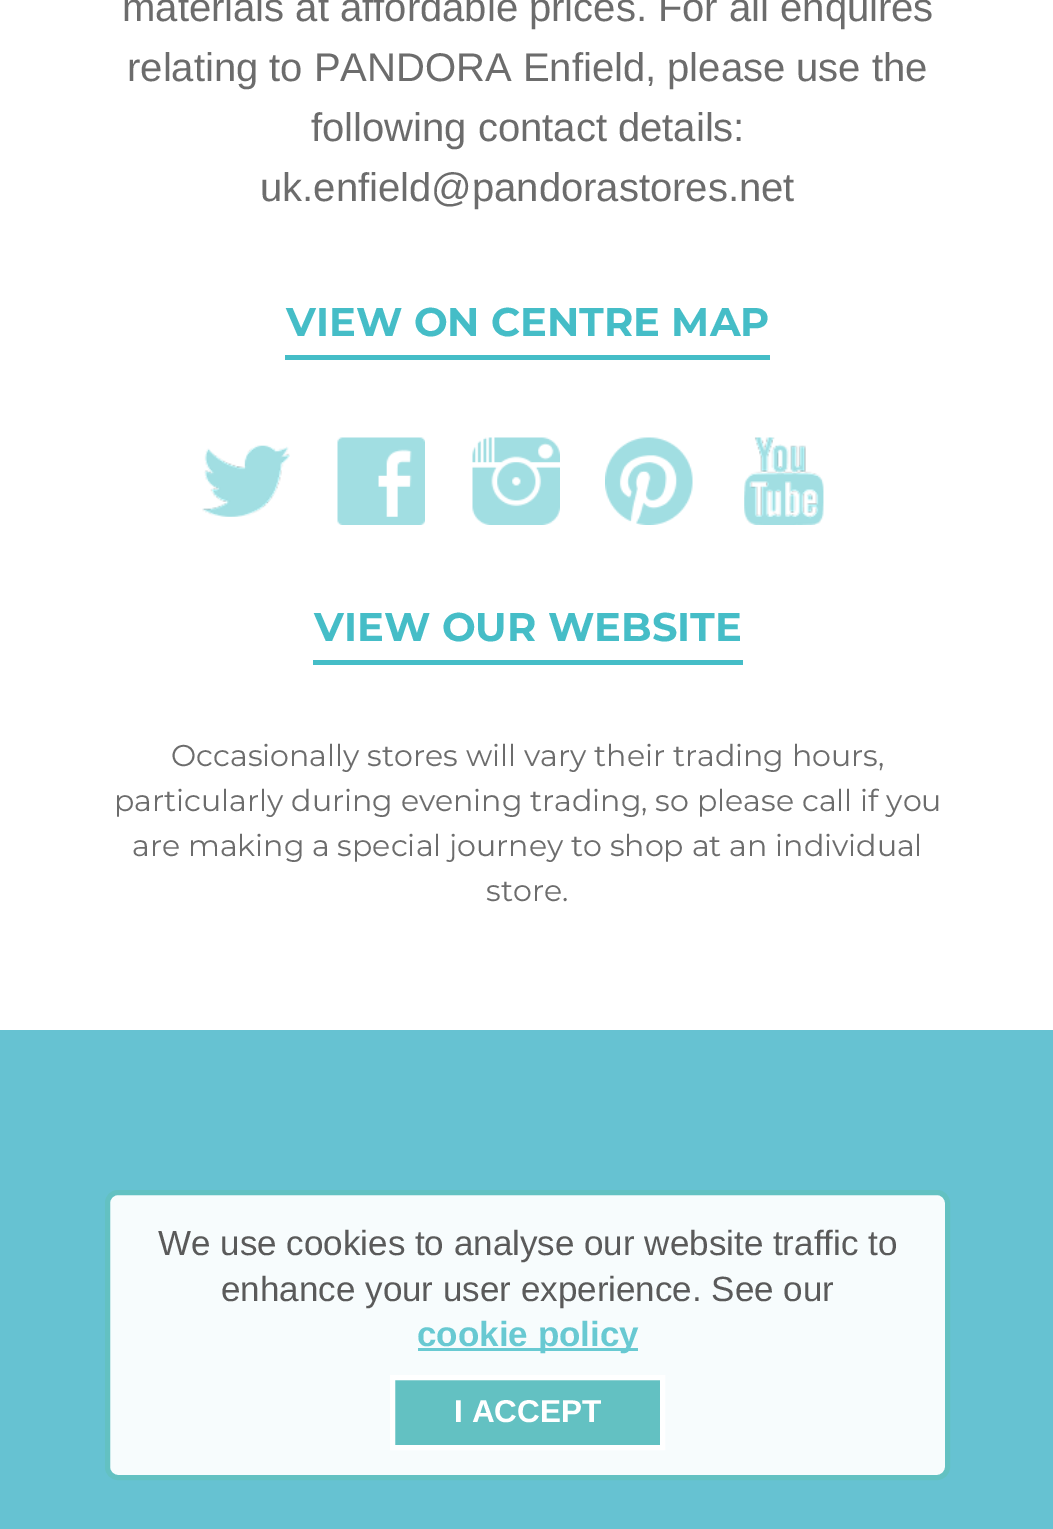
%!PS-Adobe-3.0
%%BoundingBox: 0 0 1053 1529
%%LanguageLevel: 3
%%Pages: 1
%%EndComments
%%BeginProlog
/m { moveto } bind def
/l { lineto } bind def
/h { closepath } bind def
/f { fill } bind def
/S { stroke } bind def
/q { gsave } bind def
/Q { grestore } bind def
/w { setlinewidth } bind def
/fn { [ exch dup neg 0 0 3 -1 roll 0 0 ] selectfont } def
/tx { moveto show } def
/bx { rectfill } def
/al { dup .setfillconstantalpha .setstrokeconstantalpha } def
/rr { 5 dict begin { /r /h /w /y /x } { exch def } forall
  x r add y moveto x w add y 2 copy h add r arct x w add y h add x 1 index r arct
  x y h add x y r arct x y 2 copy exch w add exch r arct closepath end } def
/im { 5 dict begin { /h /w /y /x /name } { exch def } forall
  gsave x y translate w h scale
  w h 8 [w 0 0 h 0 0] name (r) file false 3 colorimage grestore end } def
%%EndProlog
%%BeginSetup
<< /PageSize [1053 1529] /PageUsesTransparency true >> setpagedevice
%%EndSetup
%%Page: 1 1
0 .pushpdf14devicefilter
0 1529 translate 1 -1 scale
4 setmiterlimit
1 setgray
0 0 1053 1529 bx
/LiberationSans-Regular 40 fn
0.424 setgray
(materials at affordable prices. For all enquires) 122 21 tx
(relating to PANDORA Enfield, please use the) 127 81 tx
(following contact details:) 311 141 tx
(uk.enfield@pandorastores.net) 260 201 tx
/Montserrat-Bold 40 fn
0.271 0.741 0.78 setrgbcolor
(VIEW ON CENTRE MAP) 286 336 tx
285 355 485 5 bx
(image0.raw) 202 445 88 72 im
(image1.raw) 337 437 88 88 im
(image2.raw) 472 437 88 88 im
(image3.raw) 605 437 88 88 im
(image4.raw) 744 437 80 88 im
(VIEW OUR WEBSITE) 314 641 tx
313 660 430 5 bx
/Montserrat-Regular 30 fn
0.424 setgray
(Occasionally stores will vary their trading hours,) 171 766 tx
(particularly during evening trading, so please call if you) 114 811 tx
(are making a special journey to shop at an individual) 132 856 tx
(store.) 486 901 tx
0.4 0.761 0.824 setrgbcolor
0 1030 1053 499 bx
0.95 al
1 setgray
107.5 1192.5 840 285 10.5 rr f
1 al
0.388 0.757 0.761 setrgbcolor
5 w
107.5 1192.5 840 285 10.5 rr S
/LiberationSans-Regular 35 fn
0.353 setgray
(We use cookies to analyse our website traffic to) 158 1255 tx
(enhance your user experience. See our) 221 1301 tx
0.8 al
0.271 0.741 0.78 setrgbcolor
418 1348 220 3 bx
/LiberationSans-Bold 35 fn
1 al
0.408 0.788 0.824 setrgbcolor
(cookie policy) 417 1346 tx
0.388 0.757 0.761 setrgbcolor
392.5 1377.5 m 662.5 1377.5 l 662.5 1447.5 l 392.5 1447.5 l h q f Q
1 setgray
S
/LiberationSans-Bold 31.5 fn
(I ACCEPT) 454 1422 tx
.poppdf14devicefilter showpage
%%EOF
